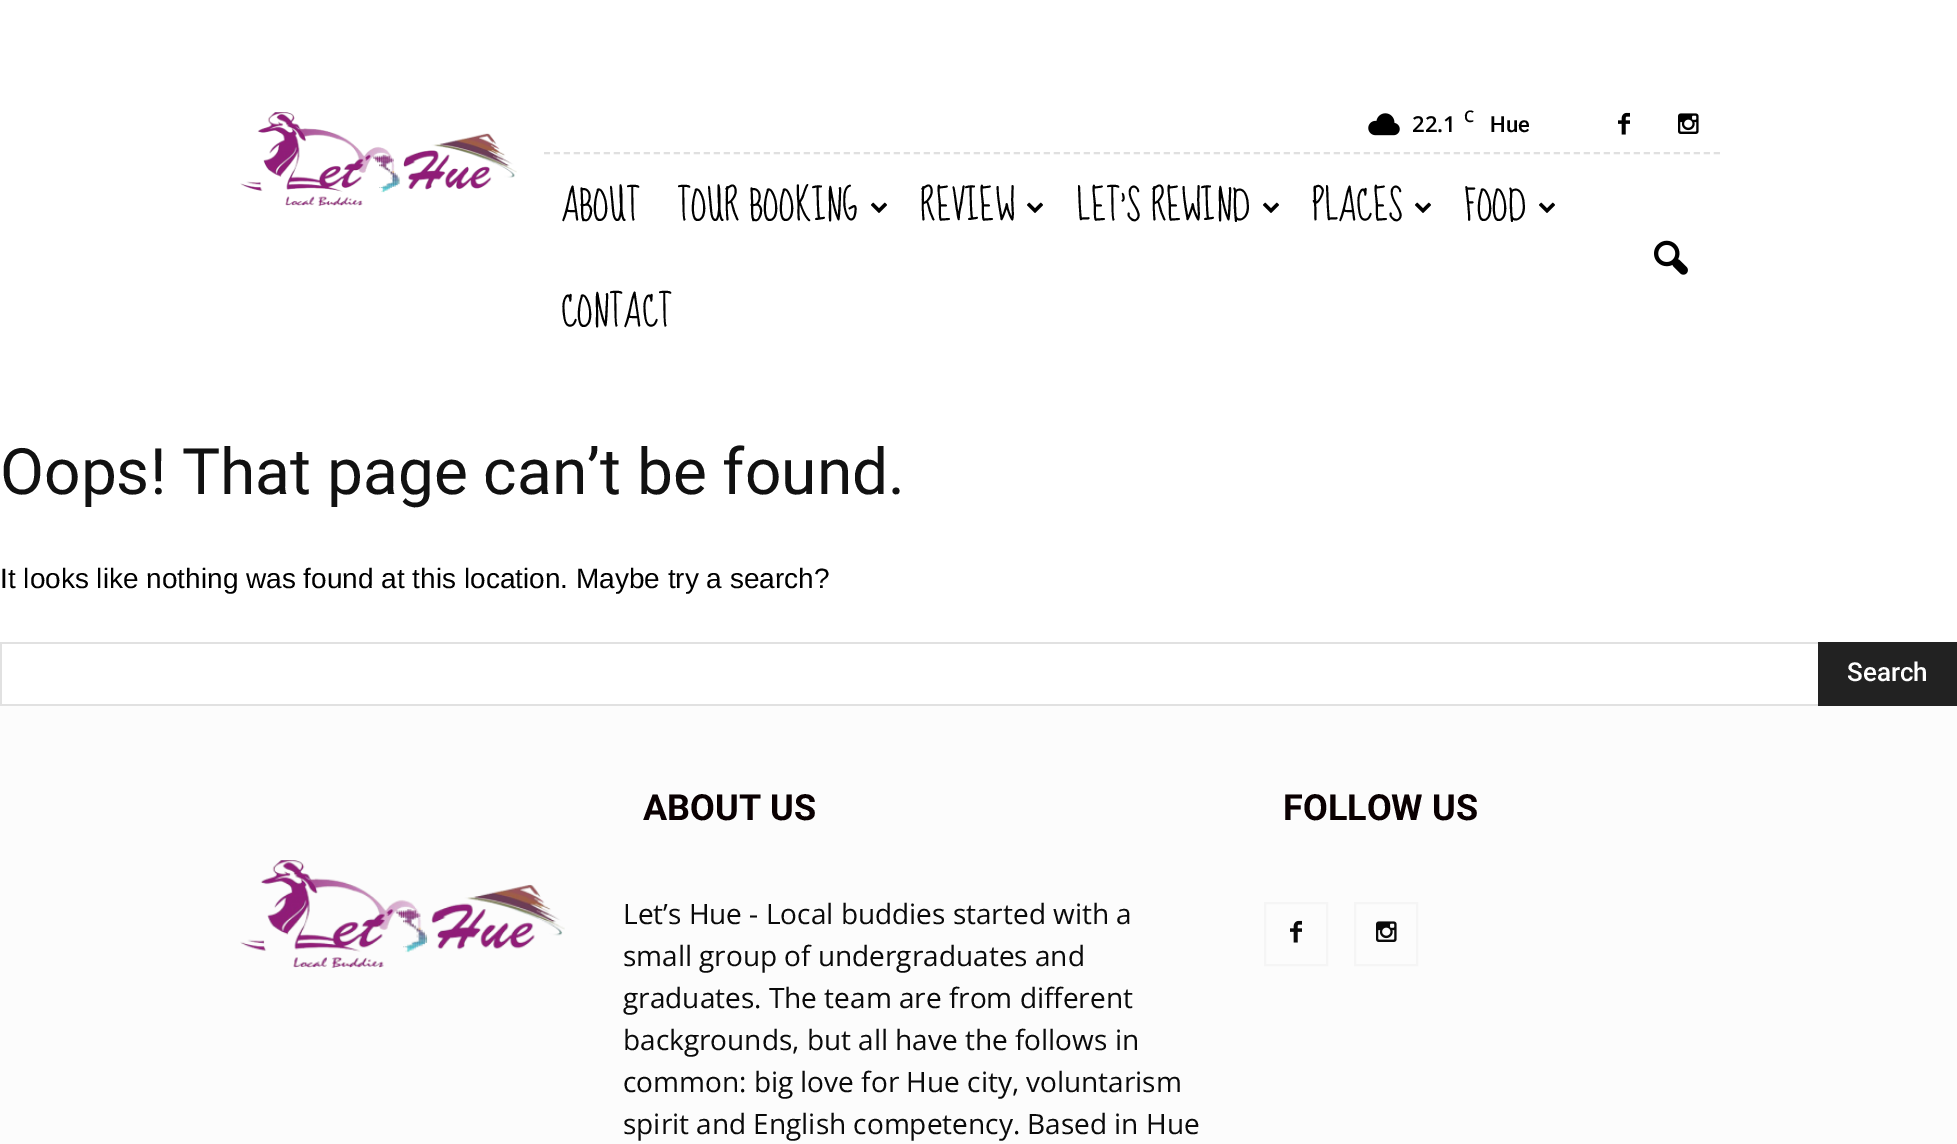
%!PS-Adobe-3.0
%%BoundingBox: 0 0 1957 1144
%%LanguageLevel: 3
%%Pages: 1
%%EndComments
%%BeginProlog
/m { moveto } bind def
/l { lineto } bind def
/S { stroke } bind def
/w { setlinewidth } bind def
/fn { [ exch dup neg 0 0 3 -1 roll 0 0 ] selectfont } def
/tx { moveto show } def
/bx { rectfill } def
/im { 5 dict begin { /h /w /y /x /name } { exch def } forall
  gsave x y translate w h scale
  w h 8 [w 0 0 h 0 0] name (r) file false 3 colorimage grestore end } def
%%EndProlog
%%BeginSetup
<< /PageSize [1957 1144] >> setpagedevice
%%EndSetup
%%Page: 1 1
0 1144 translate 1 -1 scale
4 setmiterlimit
1 setgray
0 0 1957 1144 bx
(image0.raw) 240 112 277 94 im
0.878 setgray
2 w
[6 4] 0 setdash
544 153 m 1720 153 l S
(image1.raw) 1368 113 32 23 im
/OpenSans-SemiBold 22 fn
0 setgray
(22.1) 1412 132 tx
/OpenSans-SemiBold 16 fn
(C) 1464 122 tx
/Roboto-Medium 22 fn
(Hue) 1490 132 tx
(image2.raw) 1618 112 12 23 im
(image3.raw) 1678 113 21 21 im
/SueEllenFrancisco-Regular 38 fn
(ABOUT) 561 220 tx
(TOUR BOOKING) 677 220 tx
(image4.raw) 871 202 16 11 im
(REVIEW) 920 220 tx
(image4.raw) 1027 202 16 11 im
(LET’S REWIND) 1077 220 tx
(image4.raw) 1263 202 16 11 im
(PLACES) 1312 220 tx
(image4.raw) 1415 202 16 11 im
(FOOD) 1464 220 tx
(image4.raw) 1539 202 16 11 im
(CONTACT) 561 326 tx
(image5.raw) 1654 240 34 35 im
/Roboto-Regular 64 fn
0.067 setgray
(Oops! That page can’t be found.) 0 494 tx
/LiberationSans-Regular 28 fn
0 setgray
(It looks like nothing was found at this location. Maybe try a search?) 0 588 tx
0.882 setgray
0 642 1818 2 bx
0 704 1818 2 bx
0 642 2 64 bx
0.133 setgray
1818 642 139 64 bx
/Roboto-Medium 26 fn
1 setgray
(Search) 1847 681 tx
0.988 setgray
0 706 1957 438 bx
/Roboto-Bold 36 fn
0.039 0 0.004 setrgbcolor
(ABOUT US) 643 820 tx
/OpenSans-Regular 28 fn
0.039 setgray
(Let’s Hue - Local buddies started with a) 623 924 tx
(small group of undergraduates and) 623 966 tx
(graduates. The team are from different) 623 1008 tx
(backgrounds, but all have the follows in) 623 1050 tx
(common: big love for Hue city, voluntarism) 623 1092 tx
(spirit and English competency. Based in Hue) 623 1134 tx
/Roboto-Bold 36 fn
0.039 0 0.004 setrgbcolor
(FOLLOW US) 1283 820 tx
(image6.raw) 1290 920 12 23 im
0.961 setgray
[] 0 setdash
1265 903 62 62 rectstroke
(image7.raw) 1376 921 21 21 im
1355 903 62 62 rectstroke
(image8.raw) 240 860 325 108 im
showpage
%%EOF
